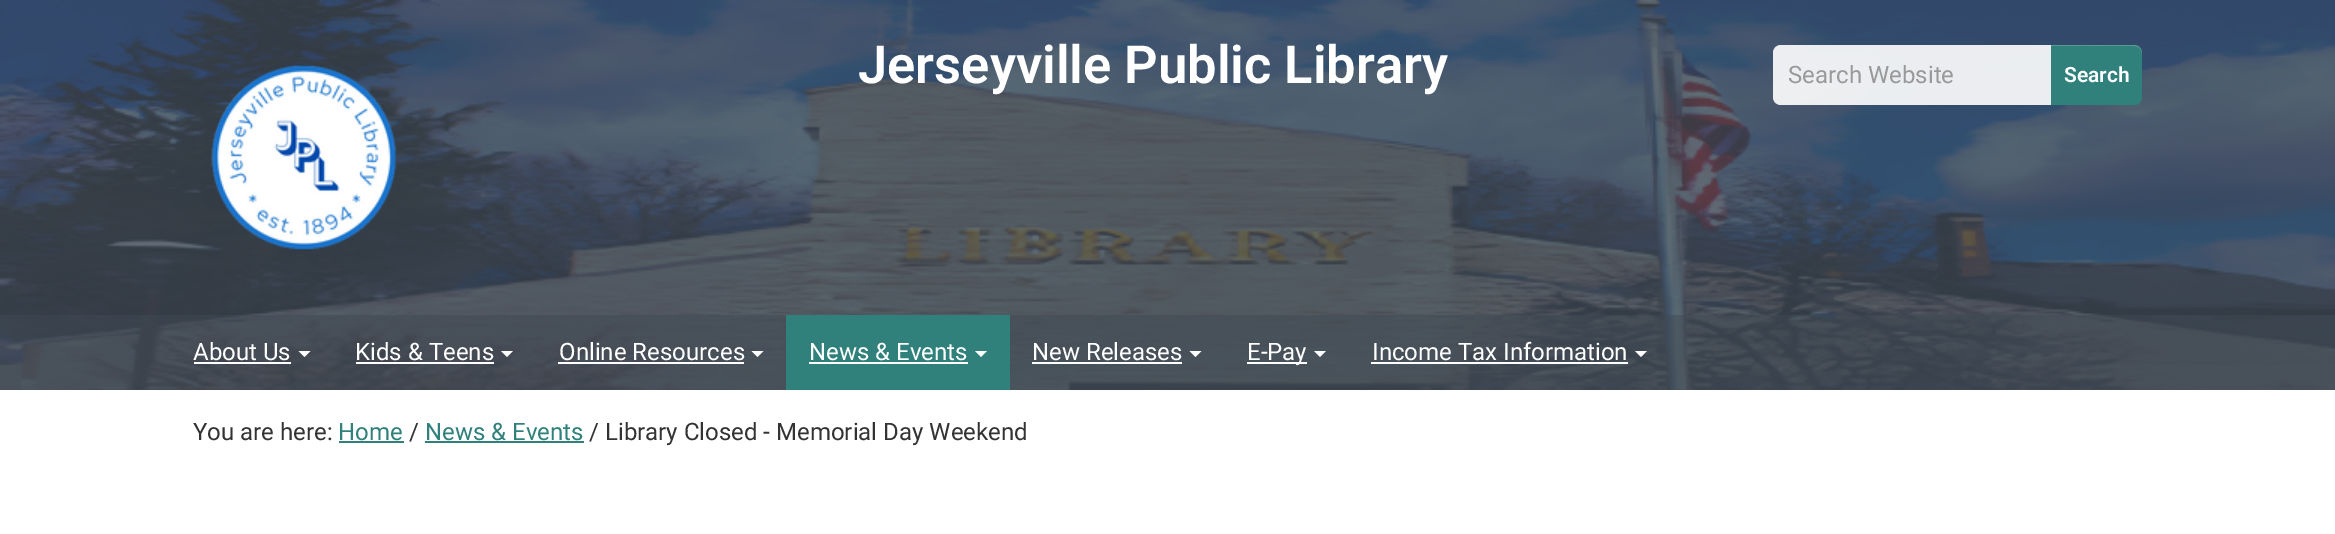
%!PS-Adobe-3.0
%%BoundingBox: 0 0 2335 534
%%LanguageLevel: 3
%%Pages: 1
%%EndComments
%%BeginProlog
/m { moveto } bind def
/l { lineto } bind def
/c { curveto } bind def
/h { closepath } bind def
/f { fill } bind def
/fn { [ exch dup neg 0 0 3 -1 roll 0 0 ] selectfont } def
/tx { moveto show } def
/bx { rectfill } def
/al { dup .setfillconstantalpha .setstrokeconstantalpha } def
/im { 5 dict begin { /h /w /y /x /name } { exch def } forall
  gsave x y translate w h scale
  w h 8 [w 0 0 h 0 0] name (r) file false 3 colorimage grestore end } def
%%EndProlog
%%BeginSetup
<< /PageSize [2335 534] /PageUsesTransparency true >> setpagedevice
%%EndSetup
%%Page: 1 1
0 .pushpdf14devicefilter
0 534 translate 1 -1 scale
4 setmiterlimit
1 setgray
0 0 2335 534 bx
(image0.raw) 0 0 2335 390 im
0.8 al
0.247 0.286 0.325 setrgbcolor
0 0 2335 315 bx
1 al
(image1.raw) 211 65 186 185 im
/Roboto-SemiBold 52.5 fn
1 setgray
(Jerseyville Public Library) 858 83 tx
0.9 al
1781 45 m 2051 45 l 2051 105 l 1781 105 l 1776.5 105 1773 101.5 1773 97 c 1773 53 l 1773 48.5 1776.5 45 1781 45 c h f
/Roboto-Regular 24 fn
1 al
0.6 setgray
(Search Website) 1788 83 tx
0.188 0.502 0.482 setrgbcolor
2051 45 m 2134 45 l 2138.5 45 2142 48.5 2142 53 c 2142 97 l 2142 101.5 2138.5 105 2134 105 c 2051 105 l h f
0.2 al
1 setgray
2051 45 m 2051 46 l 2134 46 l 2139 46 2142 50 2142 54 c 2142 49 2139 45 2134 45 c h f
/Roboto-SemiBold 21 fn
1 al
(Search) 2064 82 tx
0.9 al
0.247 0.286 0.325 setrgbcolor
0 315 2335 75 bx
/Roboto-Regular 24 fn
1 al
1 setgray
(About Us) 193 360 tx
194 362 97 2 bx
298.5 351 m 310.5 351 l 304.5 357 l h f
(Kids & Teens) 355 360 tx
356 362 138 2 bx
501 351 m 513 351 l 507 357 l h f
(Online Resources) 559 360 tx
558 362 186 2 bx
751.5 351 m 763.5 351 l 757.5 357 l h f
0.188 0.502 0.482 setrgbcolor
786 315 224 75 bx
1 setgray
(News & Events) 809 360 tx
809 362 159 2 bx
975 351 m 987 351 l 981 357 l h f
(New Releases) 1032 360 tx
1032 362 150 2 bx
1189.5 351 m 1201.5 351 l 1195.5 357 l h f
1247 362 60 2 bx
(E-Pay) 1247 360 tx
1314 351 m 1326 351 l 1320 357 l h f
(Income Tax Information) 1372 360 tx
1371 362 257 2 bx
1635 351 m 1647 351 l 1641 357 l h f
0.2 setgray
(You are here:) 193 440 tx
0.188 0.502 0.482 setrgbcolor
(Home) 338 440 tx
339 441 65 2 bx
0.2 setgray
(/) 409 440 tx
0.188 0.502 0.482 setrgbcolor
(News & Events) 425 440 tx
425 441 159 2 bx
0.2 setgray
(/ Library Closed - Memorial Day Weekend) 589 440 tx
.poppdf14devicefilter showpage
%%EOF
